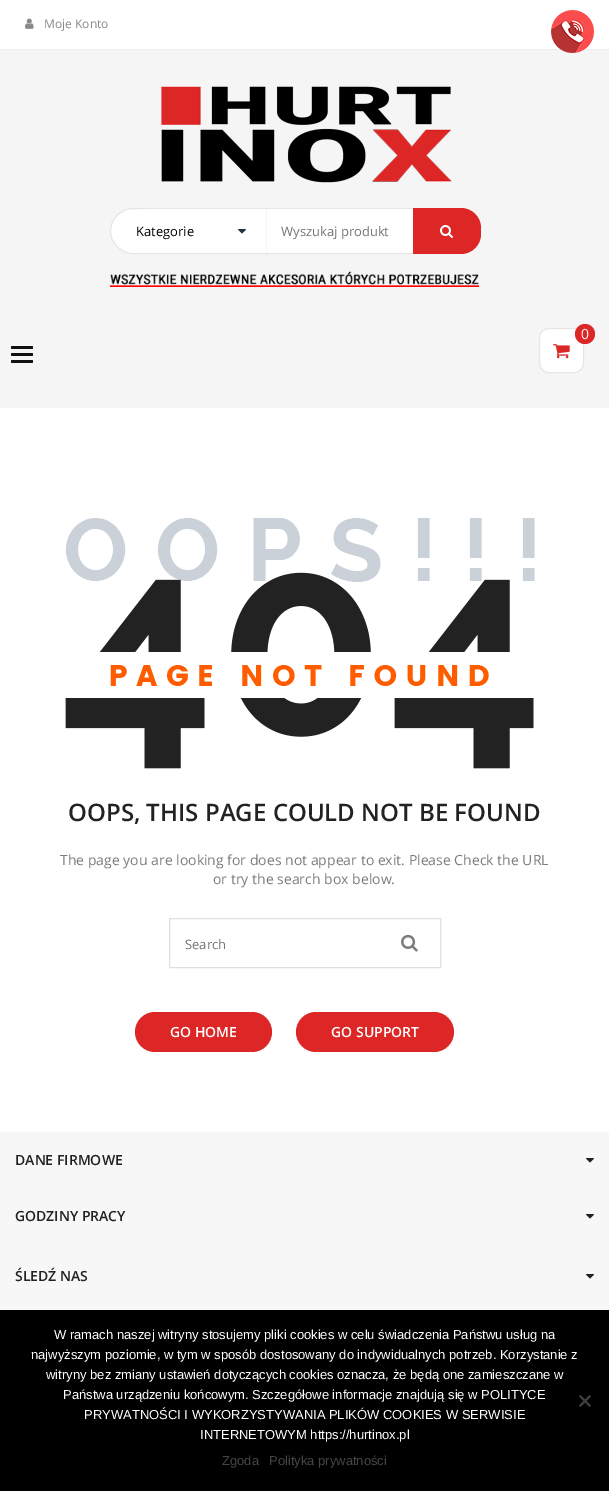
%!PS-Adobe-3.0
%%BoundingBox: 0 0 609 1491
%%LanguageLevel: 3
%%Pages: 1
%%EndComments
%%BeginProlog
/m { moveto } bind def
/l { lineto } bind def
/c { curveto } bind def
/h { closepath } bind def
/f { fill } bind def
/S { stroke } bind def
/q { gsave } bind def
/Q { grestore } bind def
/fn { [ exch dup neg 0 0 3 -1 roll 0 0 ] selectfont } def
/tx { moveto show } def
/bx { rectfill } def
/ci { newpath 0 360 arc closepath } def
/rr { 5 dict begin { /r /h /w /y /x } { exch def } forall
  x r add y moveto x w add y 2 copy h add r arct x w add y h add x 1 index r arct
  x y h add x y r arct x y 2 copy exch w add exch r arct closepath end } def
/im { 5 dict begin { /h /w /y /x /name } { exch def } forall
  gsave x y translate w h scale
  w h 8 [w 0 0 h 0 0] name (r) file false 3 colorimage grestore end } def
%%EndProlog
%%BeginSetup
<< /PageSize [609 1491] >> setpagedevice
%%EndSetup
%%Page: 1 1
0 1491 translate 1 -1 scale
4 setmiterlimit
1 setgray
0 0 609 1491 bx
0.929 setgray
0 49 609 1 bx
0.961 setgray
0 50 609 358 bx
(image0.raw) 551 10 43 43 im
(image1.raw) 25 18 9 11 im
/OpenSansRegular-Regular 12 fn
0.537 setgray
(Moje Konto) 44 28 tx
(image2.raw) 161 86 291 97 im
1 setgray
110.5 208.5 369 45 22.5 rr q f Q
0.902 setgray
S
1 setgray
131 209 348 44 20 rr f
0.961 setgray
266 209 1 44 bx
/OpenSansRegular-Regular 13 fn
0 setgray
(Kategorie) 136 236 tx
(image3.raw) 238 229 8 5 im
0.459 setgray
(Wyszukaj produkt) 281 236 tx
0.867 0.153 0.153 setrgbcolor
413 208 m 461 208 l 472 208 481 217 481 228 c 481 234 l 481 245 472 254 461 254 c 413 254 l h f
(image4.raw) 440 225 13 13 im
(image5.raw) 110 271 369 16 im
1 setgray
539.5 328.5 44 44 9.5 rr q f Q
0.902 setgray
S
0.867 0.153 0.153 setrgbcolor
585 334 10 ci f
/OpenSansRegular-Regular 14 fn
1 setgray
(0) 581 339 tx
(image6.raw) 553 344 17 15 im
0.067 setgray
11 346 22 3 1 rr f
11 353 22 3 1 rr f
11 360 22 3 1 rr f
(image7.raw) 65 518 470 251 im
/OpenSans-SemiBold 24 fn
0.133 setgray
(OOPS, THIS PAGE COULD NOT BE FOUND) 68 821 tx
/OpenSansRegular-Regular 14 fn
0.49 setgray
(The page you are looking for does not appear to exit. Please Check the URL) 60 865 tx
(or try the search box below.) 213 884 tx
0.878 setgray
169.5 918.5 271 49 rectstroke
/OpenSansRegular-Regular 13 fn
0.459 setgray
(Search) 185 949 tx
(image8.raw) 401 934 17 18 im
0.867 0.153 0.153 setrgbcolor
135 1012 137 40 20 rr f
/OpenSans-SemiBold 14 fn
1 setgray
(GO HOME) 170 1037 tx
0.867 0.153 0.153 setrgbcolor
296 1012 158 40 20 rr f
1 setgray
(GO SUPPORT) 331 1037 tx
0.969 setgray
0 1132 609 178 bx
0.133 setgray
(DANE FIRMOWE) 15 1165 tx
(image9.raw) 586 1158 8 5 im
(GODZINY PRACY) 15 1221 tx
(image9.raw) 586 1214 8 5 im
(ŚLEDŹ NAS) 15 1281 tx
(image9.raw) 586 1274 8 5 im
0 setgray
0 1310 609 181 bx
/LiberationSans-Regular 13 fn
1 setgray
(W ramach naszej witryny stosujemy pliki cookies w celu świadczenia Państwu usług na) 54 1339 tx
(najwyższym poziomie, w tym w sposób dostosowany do indywidualnych potrzeb. Korzystanie z) 31 1359 tx
(witryny bez zmiany ustawień dotyczących cookies oznacza, że będą one zamieszczane w) 46 1379 tx
(Państwa urządzeniu końcowym. Szczegółowe informacje znajdują się w POLITYCE) 63 1399 tx
(PRYWATNOŚCI I WYKORZYSTYWANIA PLIKÓW COOKIES W SERWISIE) 84 1419 tx
(INTERNETOWYM https://hurtinox.pl) 200 1439 tx
0.251 setgray
589.5 1395 m 591 1396.5 l 580.5 1407 l 579 1405.5 l h f
579 1396.5 m 580.5 1395 l 591 1405.5 l 589.5 1407 l h f
0.275 setgray
(Zgoda) 222 1465 tx
(Polityka prywatności) 269 1465 tx
showpage
%%EOF
